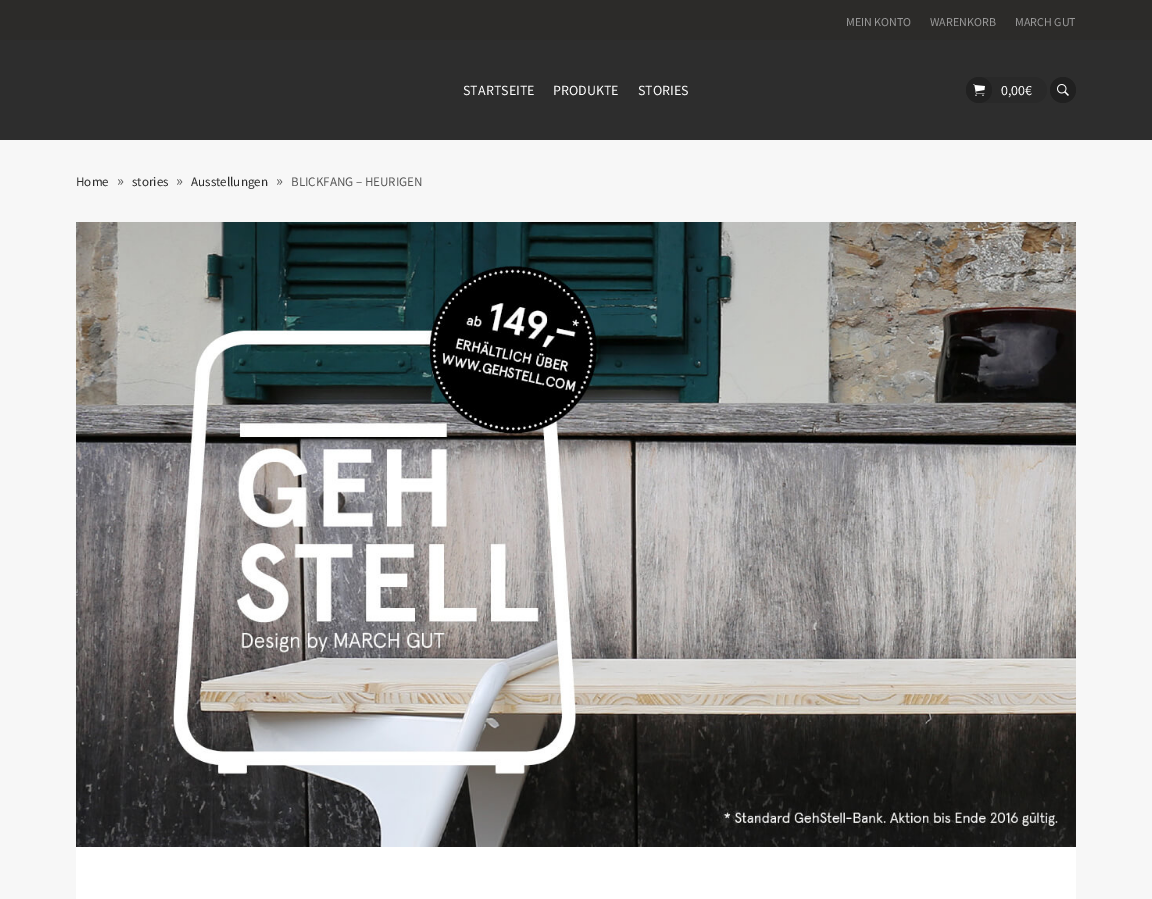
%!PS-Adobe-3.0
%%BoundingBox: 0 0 1152 899
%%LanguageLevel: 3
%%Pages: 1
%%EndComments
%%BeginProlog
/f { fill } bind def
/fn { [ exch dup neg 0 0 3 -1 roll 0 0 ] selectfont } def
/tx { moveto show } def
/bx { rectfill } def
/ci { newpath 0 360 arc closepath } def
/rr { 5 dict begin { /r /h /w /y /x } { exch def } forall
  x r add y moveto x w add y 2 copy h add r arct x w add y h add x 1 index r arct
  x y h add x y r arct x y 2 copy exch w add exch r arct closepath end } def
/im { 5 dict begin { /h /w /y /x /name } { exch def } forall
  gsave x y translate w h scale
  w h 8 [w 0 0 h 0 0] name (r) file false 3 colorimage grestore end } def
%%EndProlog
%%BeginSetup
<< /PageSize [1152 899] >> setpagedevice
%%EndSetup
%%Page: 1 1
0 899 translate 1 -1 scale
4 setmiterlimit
0.969 setgray
0 0 1152 899 bx
0.173 0.169 0.161 setrgbcolor
0 0 1152 40 bx
/SourceSansPro-Regular 12 fn
0.6 setgray
(MEIN KONTO) 846 26 tx
(WARENKORB) 930 26 tx
(MARCH GUT) 1015 26 tx
0.176 setgray
0 40 1152 100 bx
/SourceSansPro-Regular 14 fn
1 setgray
(STARTSEITE) 463 95 tx
(PRODUKTE) 553 95 tx
(STORIES) 638 95 tx
0.161 setgray
966 77 81 26 13 rr f
0.129 setgray
979 90 13 ci f
(image0.raw) 973 84 12 12 im
1 setgray
(0,00€) 1001 95 tx
0.125 setgray
1063 90 13 ci f
(image1.raw) 1057 84 12 12 im
/SourceSansPro-Regular 13 fn
0.176 setgray
(Home) 76 186 tx
/SourceSansPro-Regular 16 fn
0.349 setgray
(») 117 186 tx
/SourceSansPro-Regular 13 fn
0.176 setgray
(stories) 132 186 tx
/SourceSansPro-Regular 16 fn
0.349 setgray
(») 176 186 tx
/SourceSansPro-Regular 13 fn
0.176 setgray
(Ausstellungen) 191 186 tx
/SourceSansPro-Regular 16 fn
0.349 setgray
(») 276 186 tx
/SourceSansPro-Regular 13 fn
(BLICKFANG – HEURIGEN) 291 186 tx
(image2.raw) 76 222 1000 625 im
1 setgray
76 847 1000 52 bx
showpage
%%EOF
